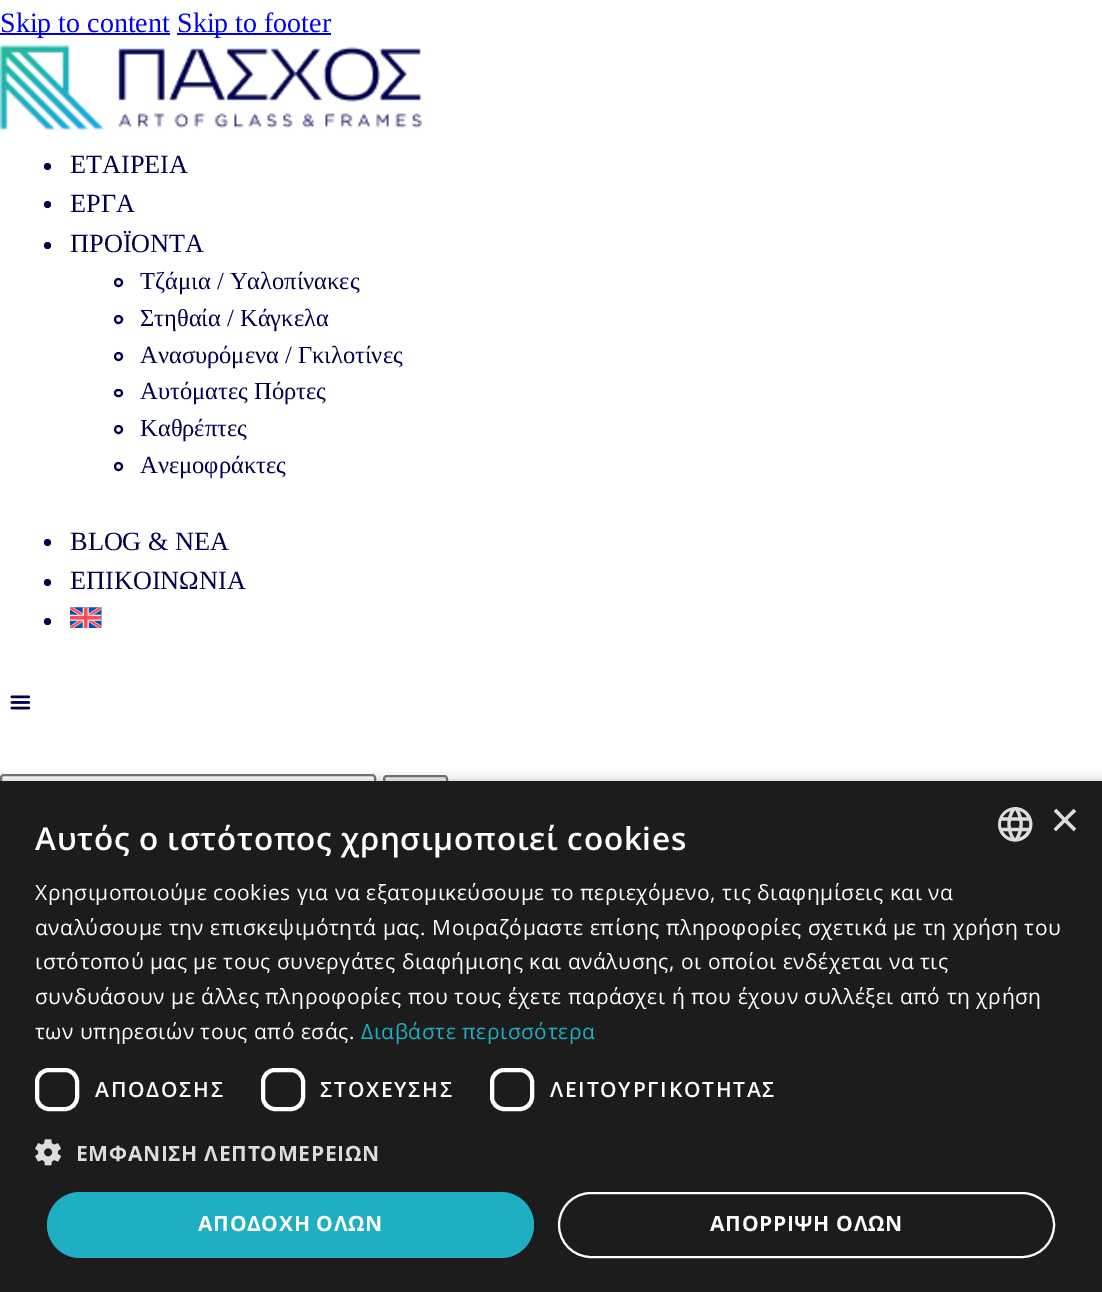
%!PS-Adobe-3.0
%%BoundingBox: 0 0 1102 1292
%%LanguageLevel: 3
%%Pages: 1
%%EndComments
%%BeginProlog
/m { moveto } bind def
/f { fill } bind def
/S { stroke } bind def
/q { gsave } bind def
/Q { grestore } bind def
/w { setlinewidth } bind def
/fn { [ exch dup neg 0 0 3 -1 roll 0 0 ] selectfont } def
/tx { moveto show } def
/bx { rectfill } def
/al { dup .setfillconstantalpha .setstrokeconstantalpha } def
/ci { newpath 0 360 arc closepath } def
/rr { 5 dict begin { /r /h /w /y /x } { exch def } forall
  x r add y moveto x w add y 2 copy h add r arct x w add y h add x 1 index r arct
  x y h add x y r arct x y 2 copy exch w add exch r arct closepath end } def
/sh { 12 dict begin { /a /b /q /h /w /y /x } { exch def } forall gsave /was 0 def
  9 -2 -9 { dup b mul 4 div /e exch def 1 sub .425 mul 2.718 exch exp 1 add a .99 .min exch div /now exch def
    1 1 now sub 1 was sub div sub al /was now def
    w h .min e 2 mul add 0 gt { x e sub y e sub w e 2 mul add h e 2 mul add
      q e add b .6 mul add w h .min 2 div e add .min 0 .max rr fill } if } for grestore end } def
/im { 5 dict begin { /h /w /y /x /name } { exch def } forall
  gsave x y translate w h scale
  w h 8 [w 0 0 h 0 0] name (r) file false 3 colorimage grestore end } def
%%EndProlog
%%BeginSetup
<< /PageSize [1102 1292] /PageUsesTransparency true >> setpagedevice
%%EndSetup
%%Page: 1 1
0 .pushpdf14devicefilter
0 1292 translate 1 -1 scale
4 setmiterlimit
1 setgray
0 0 1102 1292 bx
0 0 0.933 setrgbcolor
0 33 170 2 bx
/LiberationSerif-Regular 28 fn
(Skip to content) 0 32 tx
177 33 154 2 bx
(Skip to footer) 177 32 tx
(image0.raw) 0 45 422 85 im
0 0 0.294 setrgbcolor
47.5 166.5 3.5 ci f
/LiberationSerif-Regular 26.25 fn
(ΕΤΑΙΡΕΙΑ) 70 173 tx
47.5 204.5 3.5 ci f
(ΕΡΓΑ) 70 212 tx
47.5 245.5 3.5 ci f
(ΠΡΟΪΟΝΤΑ) 70 252 tx
2 w
118.5 282.5 3.5 ci S
/LiberationSerif-Regular 24.5 fn
(Τζάμια / Υαλοπίνακες) 140 289 tx
118.5 319.5 3.5 ci S
(Στηθαία / Κάγκελα) 140 326 tx
118.5 356.5 3.5 ci S
(Ανασυρόμενα / Γκιλοτίνες) 140 363 tx
115 390 7 6 3 rr S
(Αυτόματες Πόρτες) 140 399 tx
118.5 429.5 3.5 ci S
(Καθρέπτες) 140 436 tx
118.5 466.5 3.5 ci S
(Ανεμοφράκτες) 140 473 tx
47.5 542.5 3.5 ci f
/LiberationSerif-Regular 26.25 fn
(BLOG & NEA) 70 550 tx
47.5 582.5 3.5 ci f
(ΕΠΙΚΟΙΝΩΝΙΑ) 70 589 tx
47.5 621.5 3.5 ci f
(image1.raw) 70 607 32 21 im
(image2.raw) 10 695 21 15 im
0.463 setgray
1 775 374 50 3 rr S
0.937 setgray
384 776 63 46 3 rr q f Q
0.463 setgray
S
0 setgray
2 784 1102 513 0 7 0.35 sh
0.11 setgray
0 781 1102 511 bx
(image3.raw) 998 807 35 35 im
/LiberationSans-Regular 51 fn
0.867 setgray
(×) 1050 837 tx
/OpenSans-SemiBold 31.5 fn
1 setgray
35 850 m 0.7 0 (Αυτός ο ιστότοπος χρησιμοποιεί cookies) ashow
/OpenSans-Regular 21 fn
35 900 m 0.53 0 (Χρησιμοποιούμε cookies για να εξατομικεύσουμε το περιεχόμενο, τις διαφημίσεις και να) ashow
35 935 m 0.53 0 (αναλύσουμε την επισκεψιμότητά μας. Μοιραζόμαστε επίσης πληροφορίες σχετικά με τη χρήση του) ashow
35 969 m 0.53 0 (ιστότοπού μας με τους συνεργάτες διαφήμισης και ανάλυσης, οι οποίοι ενδέχεται να τις) ashow
35 1004 m 0.53 0 (συνδυάσουν με άλλες πληροφορίες που τους έχετε παράσχει ή που έχουν συλλέξει από τη χρήση) ashow
35 1039 m 0.53 0 (των υπηρεσιών τους από εσάς.) ashow
0.118 0.686 0.761 setrgbcolor
361 1039 m 0.53 0 (Διαβάστε περισσότερα) ashow
1 setgray
4 w
37 1070 40 39 12 rr S
/OpenSans-SemiBold 21 fn
95 1097 m 1.75 0 (ΑΠΟΔΟΣΗΣ) ashow
263 1070 40 39 12 rr S
320 1097 m 1.75 0 (ΣΤΟΧΕΥΣΗΣ) ashow
492 1070 40 39 12 rr S
550 1097 m 1.75 0 (ΛΕΙΤΟΥΡΓΙΚΟΤΗΤΑΣ) ashow
(image4.raw) 35 1139 26 27 im
/OpenSans-Bold 21 fn
0.867 setgray
76 1161 m 0.7 0 (ΕΜΦΑΝΙΣΗ ΛΕΠΤΟΜΕΡΕΙΩΝ) ashow
0.118 0.686 0.761 setrgbcolor
47 1192 487 66 33 rr f
1 setgray
198 1231 m 0.7 0 (ΑΠΟΔΟΧΗ ΟΛΩΝ) ashow
2 w
559 1193 495 64 32 rr S
710 1231 m 0.7 0 (ΑΠΟΡΡΙΨΗ ΟΛΩΝ) ashow
.poppdf14devicefilter showpage
%%EOF
